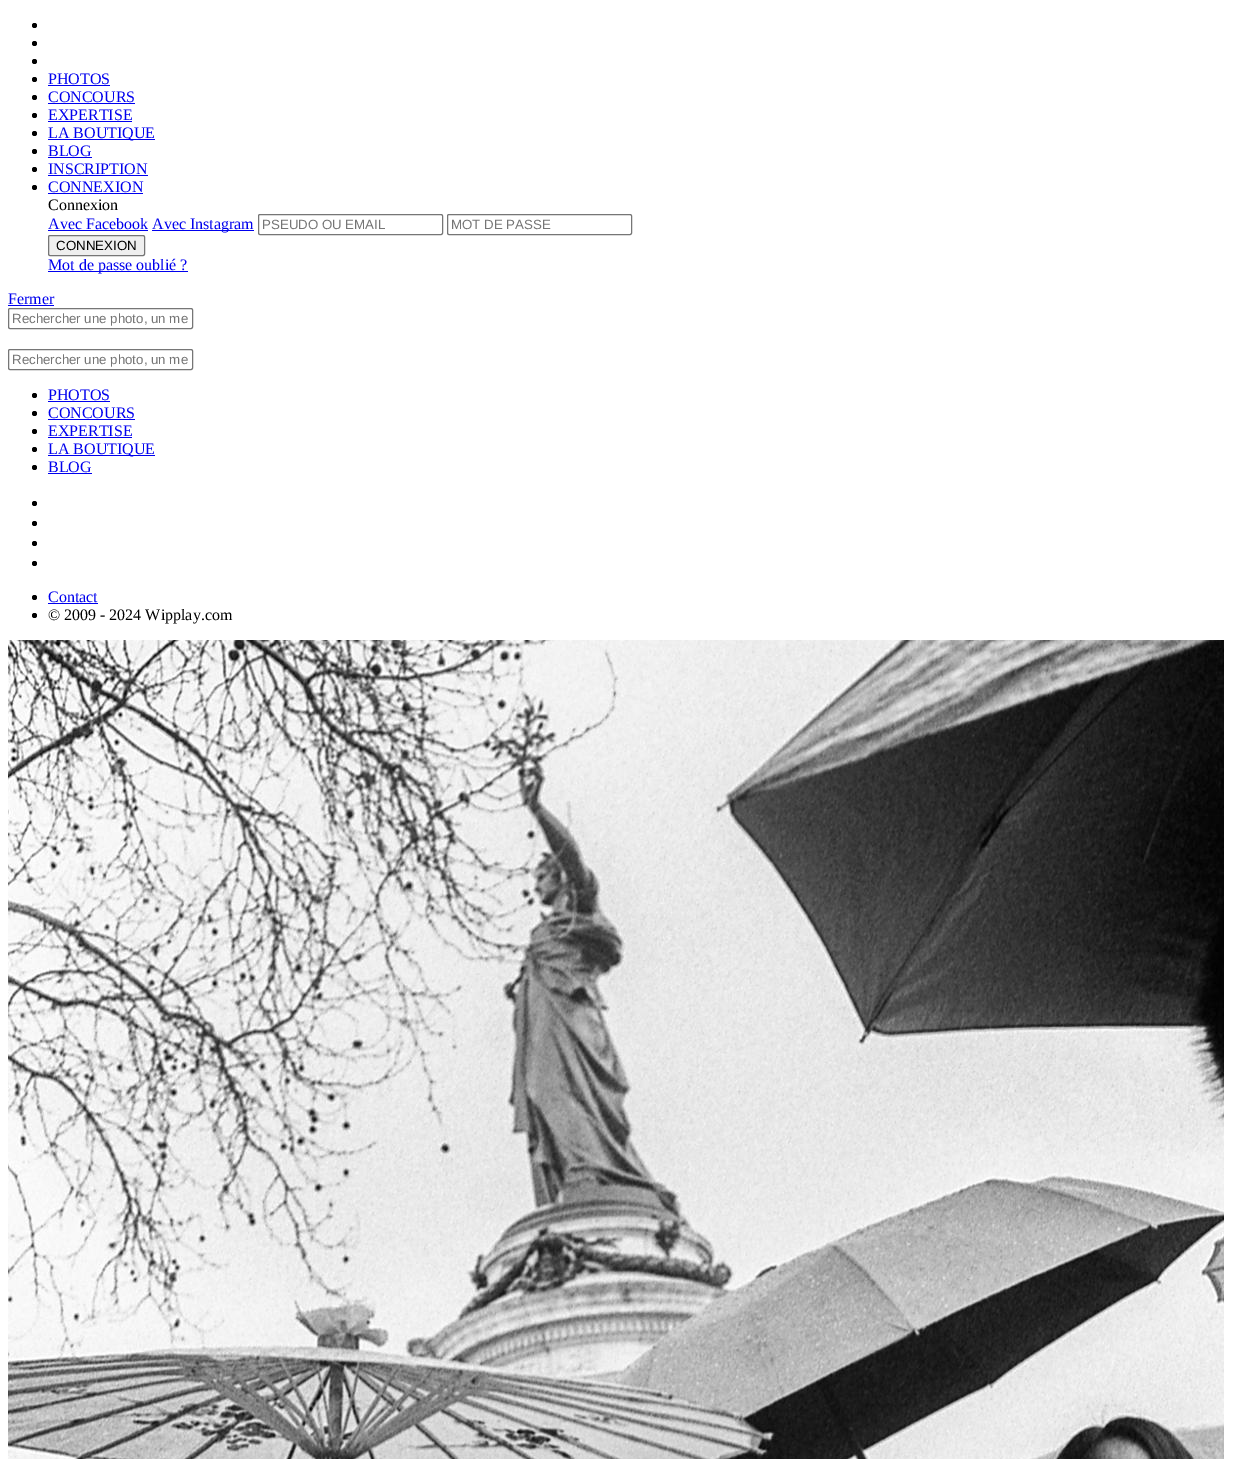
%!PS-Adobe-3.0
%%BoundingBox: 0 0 1259 1459
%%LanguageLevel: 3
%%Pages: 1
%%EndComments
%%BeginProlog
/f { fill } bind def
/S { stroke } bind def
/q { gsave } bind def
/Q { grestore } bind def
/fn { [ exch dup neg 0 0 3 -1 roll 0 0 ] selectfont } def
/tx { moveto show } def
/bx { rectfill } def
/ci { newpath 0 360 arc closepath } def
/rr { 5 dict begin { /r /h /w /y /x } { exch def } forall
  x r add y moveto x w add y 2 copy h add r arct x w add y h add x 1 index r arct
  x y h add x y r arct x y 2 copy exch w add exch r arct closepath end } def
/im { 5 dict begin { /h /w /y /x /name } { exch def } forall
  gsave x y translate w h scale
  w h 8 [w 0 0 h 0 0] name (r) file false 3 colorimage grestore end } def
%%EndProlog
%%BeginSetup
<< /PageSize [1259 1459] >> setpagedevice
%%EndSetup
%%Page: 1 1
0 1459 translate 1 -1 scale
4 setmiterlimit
1 setgray
0 0 1259 1459 bx
0 setgray
34.5 25.5 2.5 ci f
34.5 43.5 2.5 ci f
34.5 61.5 2.5 ci f
34.5 79.5 2.5 ci f
/LiberationSerif-Regular 16 fn
0 0 0.933 setrgbcolor
(PHOTOS) 48 84 tx
48 85 62 1 bx
0 setgray
34.5 97.5 2.5 ci f
0 0 0.933 setrgbcolor
(CONCOURS) 48 102 tx
48 103 87 1 bx
0 setgray
34.5 115.5 2.5 ci f
0 0 0.933 setrgbcolor
(EXPERTISE) 48 120 tx
48 121 84 1 bx
0 setgray
34.5 133.5 2.5 ci f
0 0 0.933 setrgbcolor
48 139 107 1 bx
(LA BOUTIQUE) 48 138 tx
0 setgray
34.5 151.5 2.5 ci f
0 0 0.933 setrgbcolor
(BLOG) 48 156 tx
48 157 44 1 bx
0 setgray
34.5 169.5 2.5 ci f
0 0 0.933 setrgbcolor
(INSCRIPTION) 48 174 tx
48 175 100 1 bx
0 setgray
34.5 187.5 2.5 ci f
0 0 0.933 setrgbcolor
(CONNEXION) 48 192 tx
48 193 95 1 bx
0 setgray
(Connexion) 48 210 tx
0 0 0.933 setrgbcolor
(Avec Facebook) 48 229 tx
48 230 100 1 bx
152 230 102 1 bx
(Avec Instagram) 152 229 tx
0.463 setgray
258.5 214.5 184 20 1.5 rr S
/LiberationSans-Regular 13.3 fn
0.459 setgray
(PSEUDO OU EMAIL) 262 229 tx
0.463 setgray
447.5 214.5 184 20 1.5 rr S
0.459 setgray
(MOT DE PASSE) 451 229 tx
0.937 setgray
48.5 235.5 96 20 1.5 rr q f Q
0.463 setgray
S
0 setgray
(CONNEXION) 56 250 tx
0 0 0.933 setrgbcolor
48 271 140 1 bx
/LiberationSerif-Regular 16 fn
(Mot de passe oublié ?) 48 270 tx
(Fermer) 8 304 tx
8 305 46 1 bx
0.463 setgray
8.5 308.5 184 20 1.5 rr S
/LiberationSans-Regular 13.3 fn
0.459 setgray
(Rechercher une photo, un me) 12 323 tx
0.463 setgray
8.5 349.5 184 20 1.5 rr S
0.459 setgray
(Rechercher une photo, un me) 12 364 tx
0 setgray
34.5 395.5 2.5 ci f
/LiberationSerif-Regular 16 fn
0 0 0.933 setrgbcolor
(PHOTOS) 48 400 tx
48 401 62 1 bx
0 setgray
34.5 413.5 2.5 ci f
0 0 0.933 setrgbcolor
(CONCOURS) 48 418 tx
48 419 87 1 bx
0 setgray
34.5 431.5 2.5 ci f
0 0 0.933 setrgbcolor
(EXPERTISE) 48 436 tx
48 437 84 1 bx
0 setgray
34.5 449.5 2.5 ci f
0 0 0.933 setrgbcolor
48 455 107 1 bx
(LA BOUTIQUE) 48 454 tx
0 setgray
34.5 467.5 2.5 ci f
0 0 0.933 setrgbcolor
(BLOG) 48 472 tx
48 473 44 1 bx
0 setgray
34.5 503.5 2.5 ci f
34.5 523.5 2.5 ci f
34.5 543.5 2.5 ci f
34.5 563.5 2.5 ci f
34.5 597.5 2.5 ci f
0 0 0.933 setrgbcolor
(Contact) 48 602 tx
48 603 50 1 bx
0 setgray
34.5 615.5 2.5 ci f
(© 2009 - 2024 Wipplay.com) 48 620 tx
(image0.raw) 8 640 1216 819 im
showpage
%%EOF
